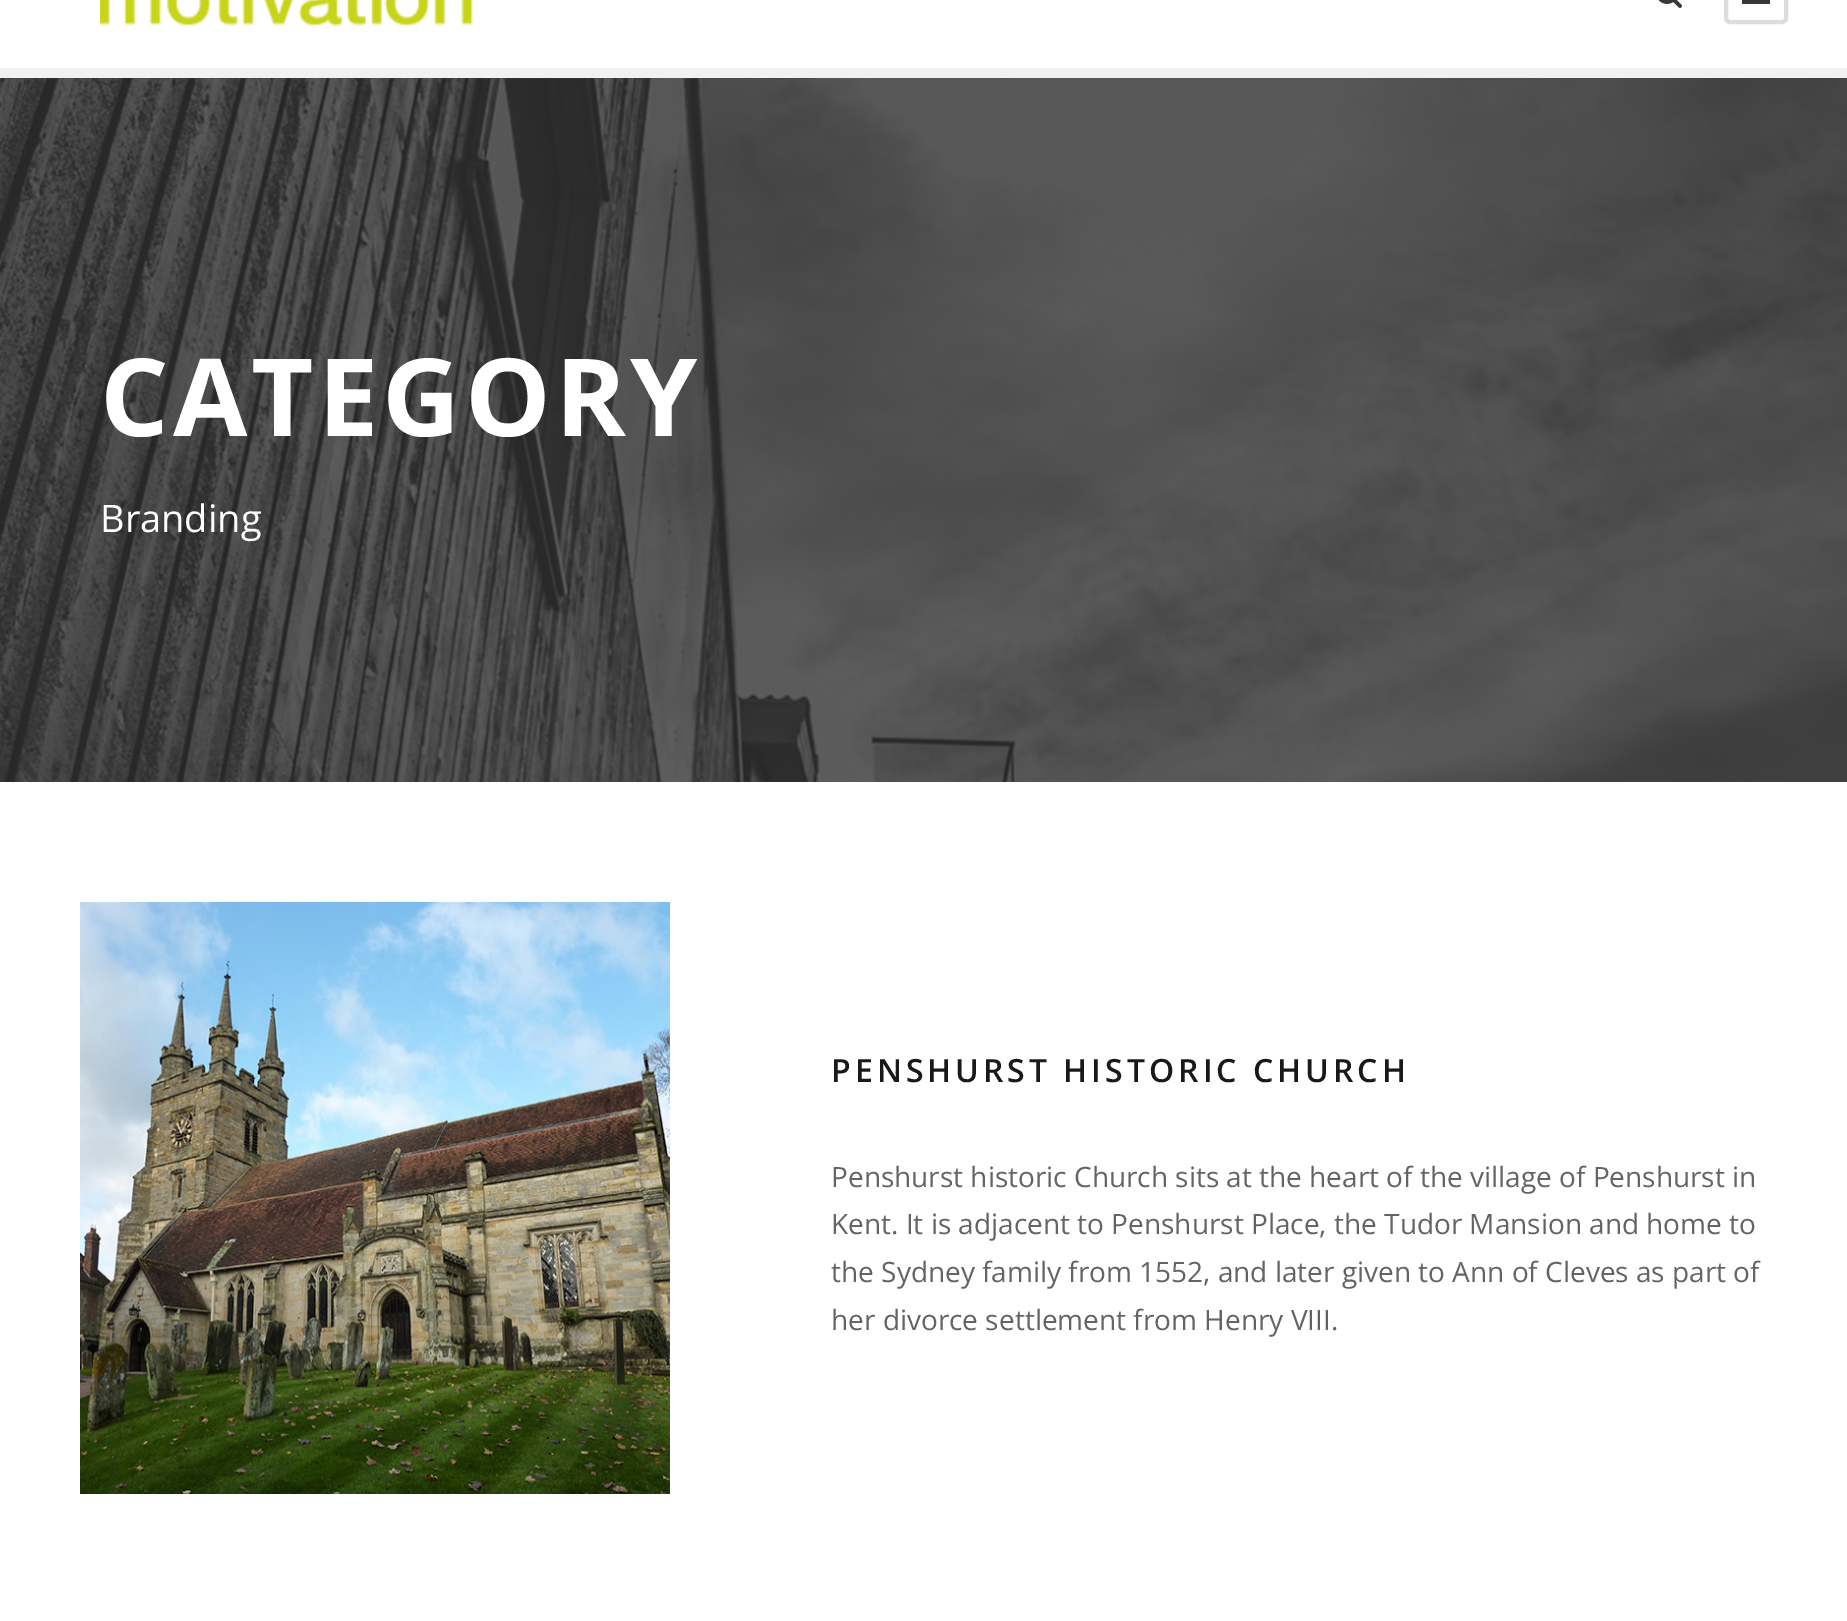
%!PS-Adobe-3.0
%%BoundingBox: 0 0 1847 1621
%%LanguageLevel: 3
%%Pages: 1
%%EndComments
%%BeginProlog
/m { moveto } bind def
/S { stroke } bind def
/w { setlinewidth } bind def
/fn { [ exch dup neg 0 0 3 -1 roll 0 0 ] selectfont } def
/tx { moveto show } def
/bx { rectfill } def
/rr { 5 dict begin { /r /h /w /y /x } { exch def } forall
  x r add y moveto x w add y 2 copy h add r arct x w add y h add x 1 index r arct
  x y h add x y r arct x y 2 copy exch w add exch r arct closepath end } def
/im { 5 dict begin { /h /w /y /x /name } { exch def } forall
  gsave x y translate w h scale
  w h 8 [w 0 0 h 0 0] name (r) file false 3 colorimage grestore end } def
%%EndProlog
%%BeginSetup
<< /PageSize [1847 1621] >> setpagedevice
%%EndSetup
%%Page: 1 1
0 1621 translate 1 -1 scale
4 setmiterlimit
1 setgray
0 0 1847 1621 bx
0.945 setgray
0 68 1847 10 bx
(image0.raw) 100 0 373 27 im
(image1.raw) 1658 0 24 8 im
0.867 setgray
4 w
1726 -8 60 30 4 rr S
0.22 setgray
1742 0 28 4 bx
(image2.raw) 0 78 1847 704 im
/OpenSans-Bold 108 fn
1 setgray
100 436 m 4 0 (CATEGORY) ashow
/OpenSans-Regular 38 fn
(Branding) 100 532 tx
(image3.raw) 80 902 590 592 im
/OpenSans-SemiBold 32 fn
0.098 setgray
831 1082 m 4 0 (PENSHURST HISTORIC CHURCH) ashow
/OpenSans-Regular 28 fn
0.392 setgray
(Penshurst historic Church sits at the heart of the village of Penshurst in) 831 1187 tx
(Kent. It is adjacent to Penshurst Place, the Tudor Mansion and home to) 831 1234 tx
(the Sydney family from 1552, and later given to Ann of Cleves as part of) 831 1282 tx
(her divorce settlement from Henry VIII.) 831 1330 tx
showpage
%%EOF
